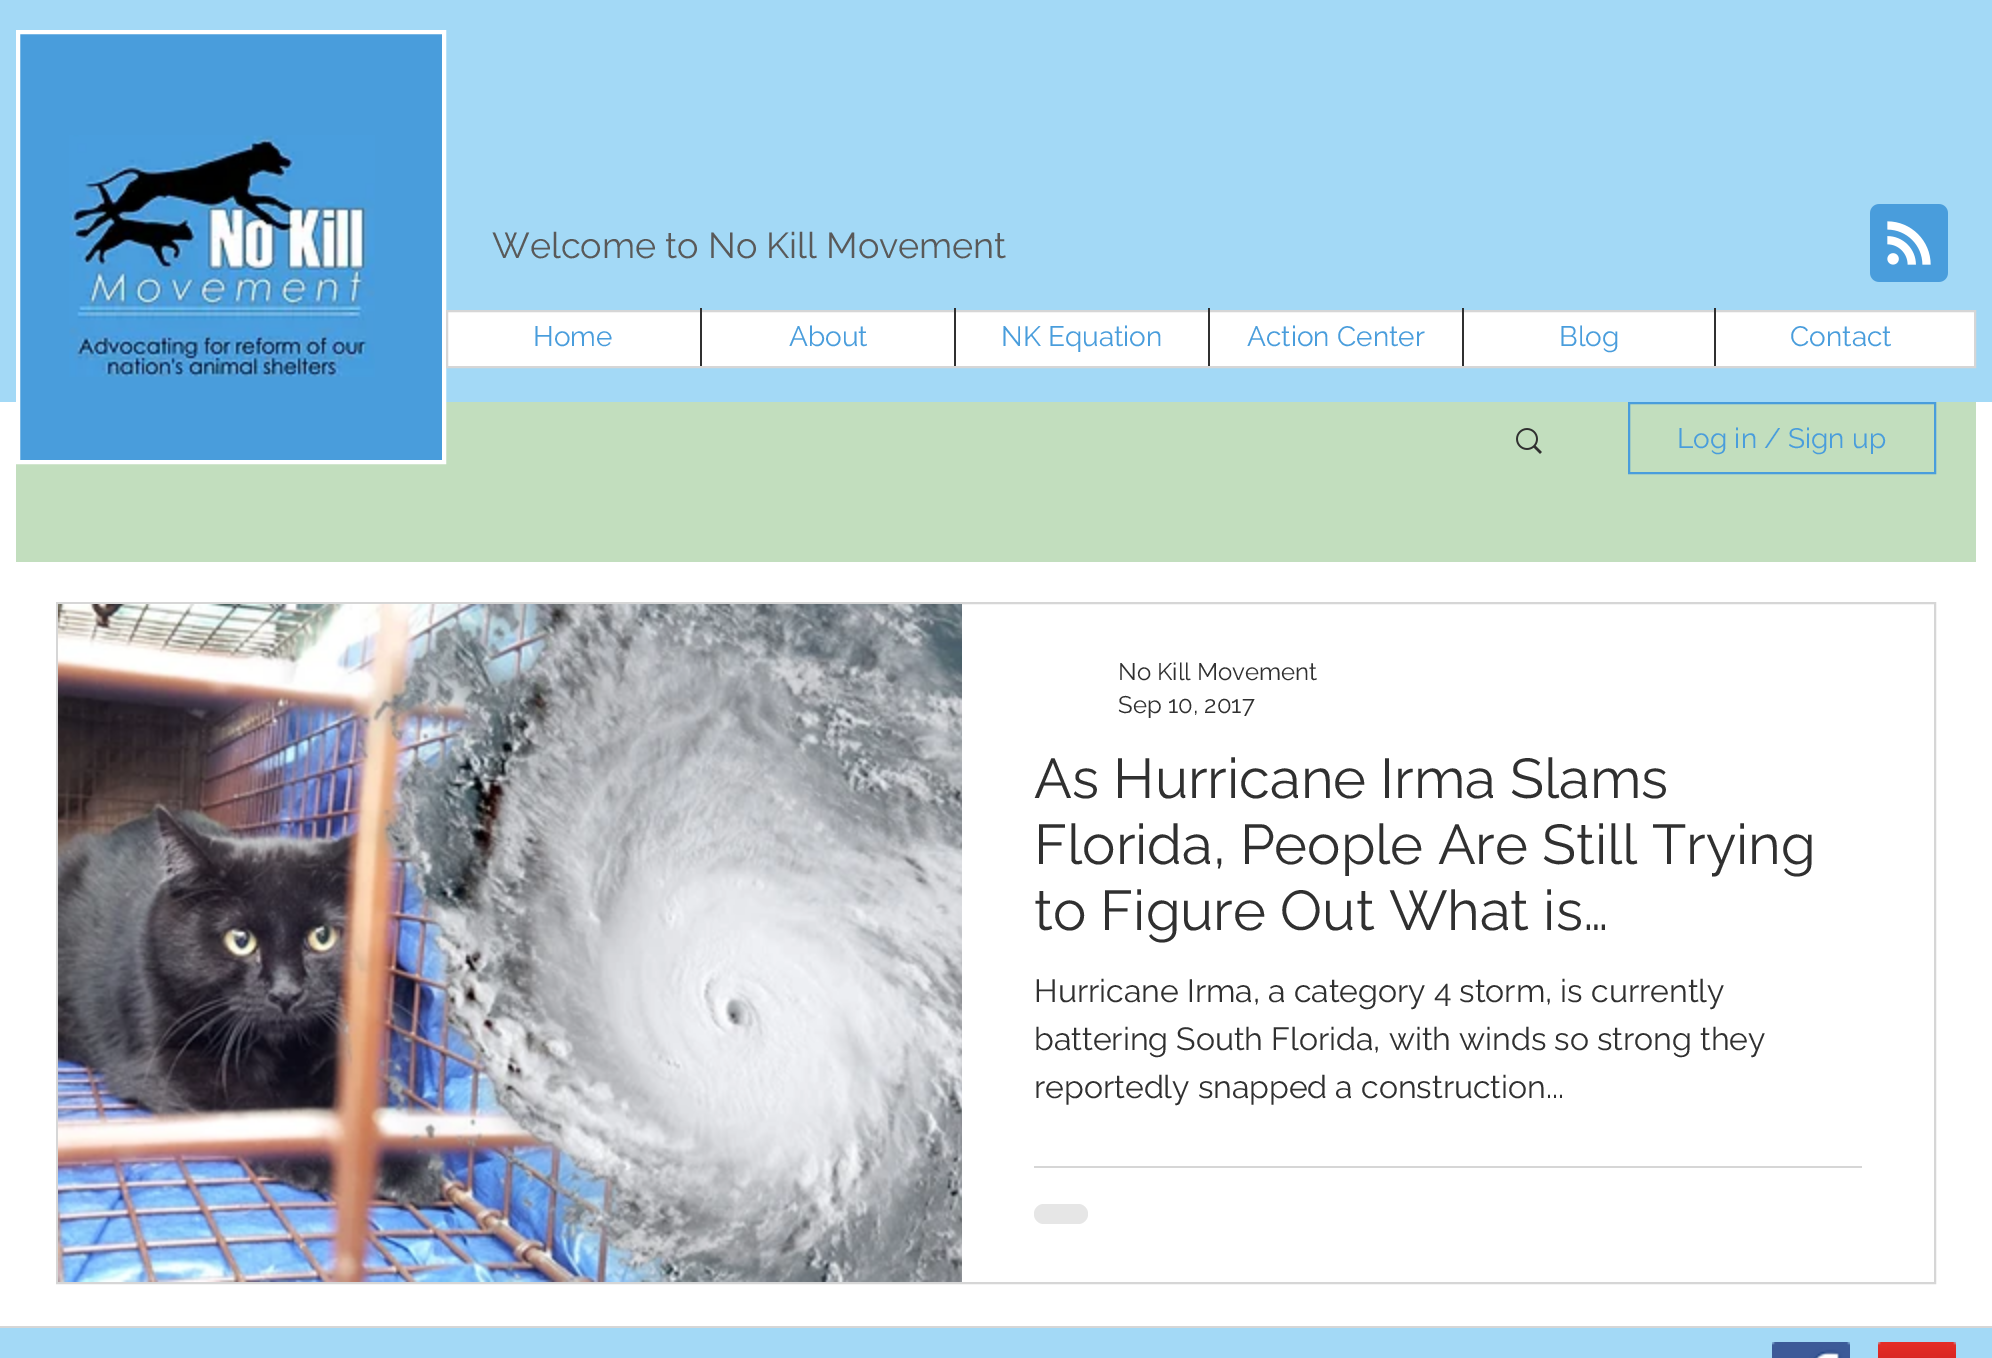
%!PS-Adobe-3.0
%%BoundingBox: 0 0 1992 1358
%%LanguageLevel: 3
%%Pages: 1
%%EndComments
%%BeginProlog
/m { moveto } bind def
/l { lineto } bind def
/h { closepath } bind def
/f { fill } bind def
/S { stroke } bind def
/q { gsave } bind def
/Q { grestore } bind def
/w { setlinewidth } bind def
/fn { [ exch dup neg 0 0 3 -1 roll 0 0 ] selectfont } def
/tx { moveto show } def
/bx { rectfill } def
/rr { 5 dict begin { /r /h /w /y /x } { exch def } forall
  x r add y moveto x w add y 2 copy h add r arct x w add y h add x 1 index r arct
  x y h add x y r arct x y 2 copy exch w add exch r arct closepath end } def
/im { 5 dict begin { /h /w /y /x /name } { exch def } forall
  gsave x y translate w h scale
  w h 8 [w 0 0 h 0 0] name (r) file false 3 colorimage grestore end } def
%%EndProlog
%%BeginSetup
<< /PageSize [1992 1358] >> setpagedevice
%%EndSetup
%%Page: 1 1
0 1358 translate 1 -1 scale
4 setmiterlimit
1 setgray
0 0 1992 1358 bx
0.639 0.851 0.965 setrgbcolor
0 0 1992 402 bx
0.761 0.871 0.745 setrgbcolor
16 402 1960 160 bx
0.286 0.616 0.863 setrgbcolor
18 32 m 444 32 l 444 462 l 18 462 l h q f Q
1 setgray
4 w
S
(image0.raw) 69 135 306 242 im
/Raleway-Regular 36 fn
0.349 setgray
(Welcome to No Kill Movement) 492 258 tx
(image1.raw) 1870 204 78 78 im
1 setgray
447 311 m 1975 311 l 1975 367 l 447 367 l h q f Q
0.839 setgray
2 w
S
/Raleway-Regular 28 fn
0.286 0.616 0.863 setrgbcolor
(Home) 533 346 tx
0.188 setgray
700 308 2 58 bx
0.286 0.616 0.863 setrgbcolor
(About) 789 346 tx
0.188 setgray
954 308 2 58 bx
0.286 0.616 0.863 setrgbcolor
(NK Equation) 1001 346 tx
0.188 setgray
1208 308 2 58 bx
0.286 0.616 0.863 setrgbcolor
(Action Center) 1247 346 tx
0.188 setgray
1462 308 2 58 bx
0.286 0.616 0.863 setrgbcolor
(Blog) 1559 346 tx
0.188 setgray
1714 308 2 58 bx
0.286 0.616 0.863 setrgbcolor
(Contact) 1790 346 tx
(image2.raw) 1516 428 26 26 im
1629 403 306 70 rectstroke
(Log in / Sign up) 1677 448 tx
0.839 setgray
57 603 1878 680 rectstroke
(image3.raw) 58 604 904 678 im
/Raleway-Regular 24 fn
0.188 setgray
(No Kill Movement) 1118 680 tx
(Sep 10, 2017) 1118 713 tx
/Raleway-Regular 56 fn
(As Hurricane Irma Slams) 1034 798 tx
(Florida, People Are Still Trying) 1034 864 tx
(to Figure Out What is…) 1034 930 tx
/Raleway-Regular 32 fn
(Hurricane Irma, a category 4 storm, is currently) 1034 1002 tx
(battering South Florida, with winds so strong they) 1034 1050 tx
(reportedly snapped a construction...) 1034 1098 tx
0.839 setgray
1034 1166 828 2 bx
0.902 setgray
1034 1204 54 20 10 rr f
0.639 0.851 0.965 setrgbcolor
0 1328 1992 30 bx
0.839 setgray
0 1326 1992 2 bx
(image4.raw) 1772 1342 78 16 im
(image5.raw) 1878 1342 78 16 im
showpage
%%EOF
